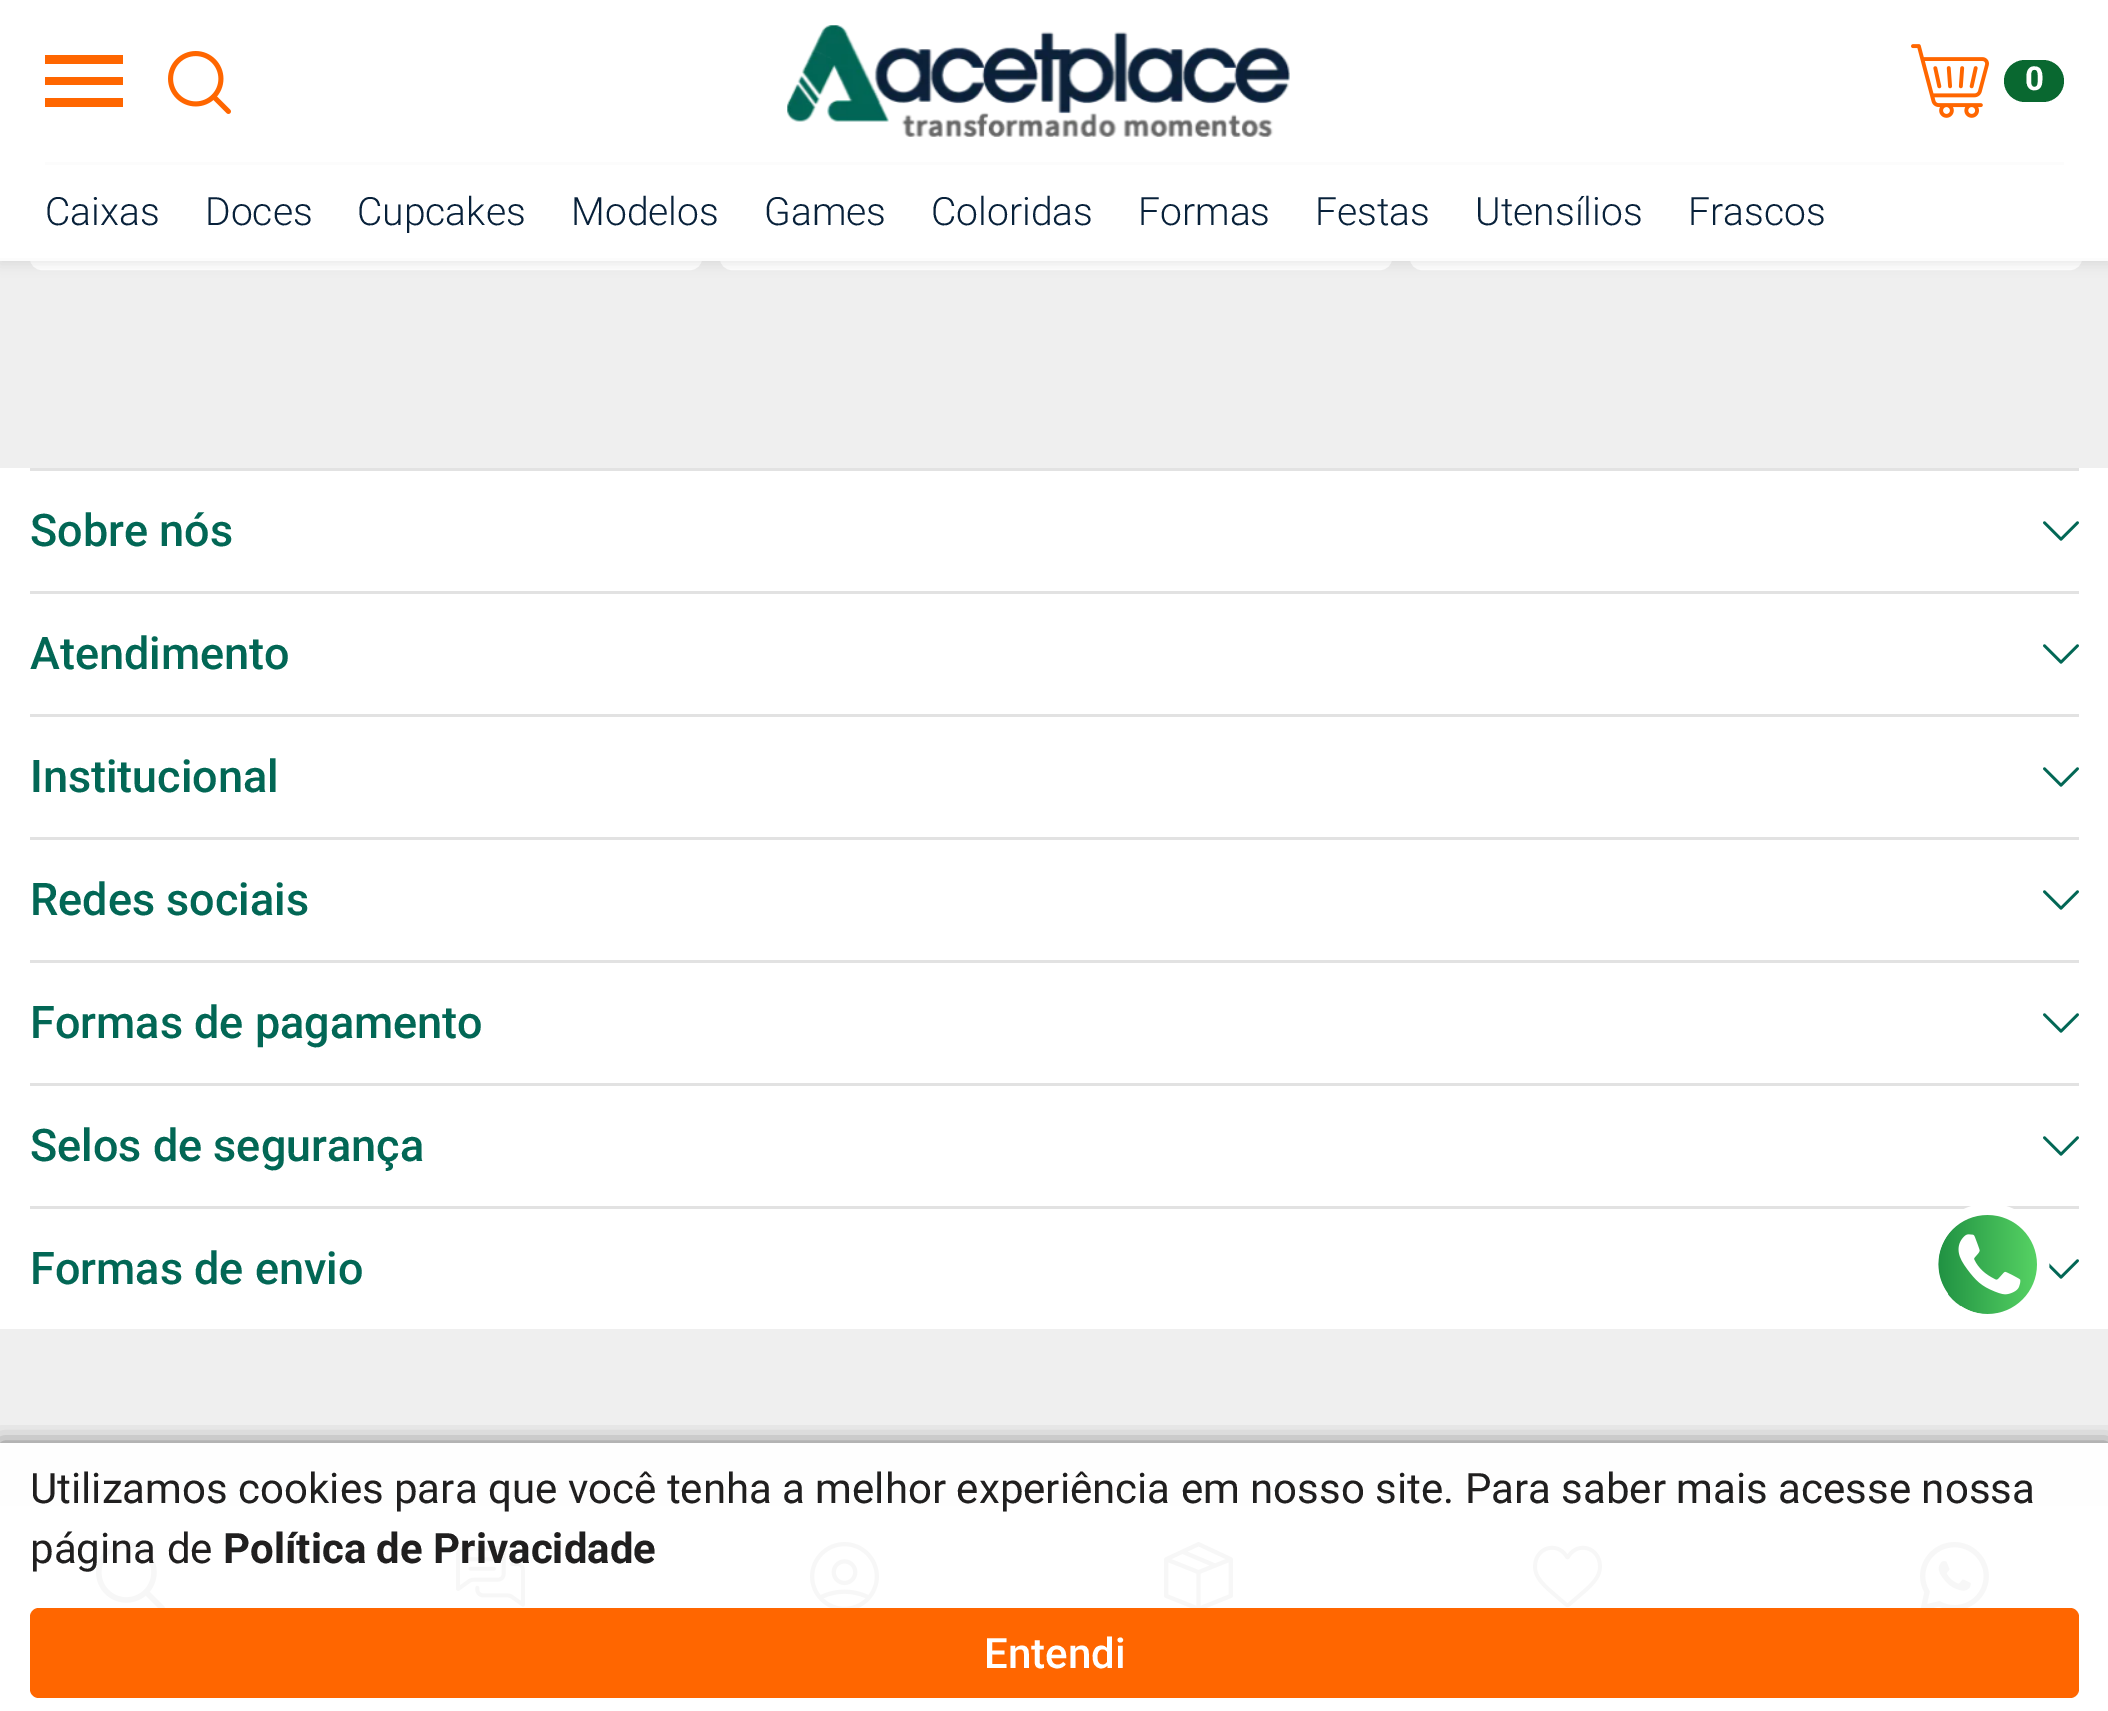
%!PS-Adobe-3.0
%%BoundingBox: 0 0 2108 1711
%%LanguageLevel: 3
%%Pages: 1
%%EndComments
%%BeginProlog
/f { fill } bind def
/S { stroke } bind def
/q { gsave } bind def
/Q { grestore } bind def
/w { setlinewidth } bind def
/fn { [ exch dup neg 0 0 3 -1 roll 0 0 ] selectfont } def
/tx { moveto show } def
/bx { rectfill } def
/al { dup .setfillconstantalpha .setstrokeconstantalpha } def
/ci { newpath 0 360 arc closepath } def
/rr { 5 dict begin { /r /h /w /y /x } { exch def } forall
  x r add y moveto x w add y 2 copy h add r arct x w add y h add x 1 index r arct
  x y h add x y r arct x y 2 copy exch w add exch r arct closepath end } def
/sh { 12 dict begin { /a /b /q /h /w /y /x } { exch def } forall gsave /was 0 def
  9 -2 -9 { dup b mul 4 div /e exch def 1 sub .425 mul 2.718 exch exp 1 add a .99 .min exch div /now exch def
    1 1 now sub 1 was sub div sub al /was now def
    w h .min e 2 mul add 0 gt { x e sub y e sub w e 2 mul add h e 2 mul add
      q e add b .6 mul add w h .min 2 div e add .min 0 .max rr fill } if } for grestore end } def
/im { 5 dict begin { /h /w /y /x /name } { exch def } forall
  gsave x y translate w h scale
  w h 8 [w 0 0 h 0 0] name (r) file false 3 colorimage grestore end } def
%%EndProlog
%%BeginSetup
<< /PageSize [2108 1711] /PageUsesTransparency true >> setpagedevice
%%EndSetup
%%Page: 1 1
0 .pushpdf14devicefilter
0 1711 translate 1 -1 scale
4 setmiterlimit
0.937 setgray
0 0 2108 1711 bx
0.996 setgray
0 1443 2108 63 bx
1 setgray
31.5 -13.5 669 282 10.5 rr q f Q
3 w
S
721.5 -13.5 669 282 10.5 rr q f Q
S
1411.5 -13.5 669 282 10.5 rr q f Q
S
0.322 setgray
0 3 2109 261 0 6 0.13 sh
1 setgray
0 0 2108 258 bx
0.988 setgray
0 258 2108 3 bx
1 0.4 0 setrgbcolor
45 98 78 9 bx
45 77 78 8 bx
45 55 78 9 bx
(image0.raw) 168 51 63 63 im
(image1.raw) 787 25 503 112 im
(image2.raw) 1911 44 78 74 im
0.035 0.408 0.188 setrgbcolor
2004 60 60 42 21 rr f
/Roboto-Bold 33 fn
1 setgray
(0) 2025 90 tx
0.988 setgray
45 162 2019 3 bx
/Roboto-Light 39 fn
0.031 0.129 0.227 setrgbcolor
(Caixas) 45 225 tx
(Doces) 205 225 tx
(Cupcakes) 357 225 tx
(Modelos) 571 225 tx
(Games) 764 225 tx
(Coloridas) 931 225 tx
(Formas) 1138 225 tx
(Festas) 1315 225 tx
(Utensílios) 1475 225 tx
(Frascos) 1688 225 tx
1 setgray
0 468 2108 861 bx
0.886 setgray
30 468 2049 3 bx
/Roboto-Medium 45 fn
0.008 0.404 0.333 setrgbcolor
(Sobre nós) 30 546 tx
(image3.raw) 2043 521 36 20 im
0.886 setgray
30 591 2049 3 bx
0.008 0.404 0.333 setrgbcolor
(Atendimento) 30 669 tx
(image3.raw) 2043 644 36 20 im
0.886 setgray
30 714 2049 3 bx
0.008 0.404 0.333 setrgbcolor
(Institucional) 30 792 tx
(image3.raw) 2043 767 36 20 im
0.886 setgray
30 837 2049 3 bx
0.008 0.404 0.333 setrgbcolor
(Redes sociais) 30 915 tx
(image3.raw) 2043 890 36 20 im
0.886 setgray
30 960 2049 3 bx
0.008 0.404 0.333 setrgbcolor
(Formas de pagamento) 30 1038 tx
(image3.raw) 2043 1013 36 20 im
0.886 setgray
30 1083 2049 3 bx
0.008 0.404 0.333 setrgbcolor
(Selos de segurança) 30 1161 tx
(image3.raw) 2043 1136 36 20 im
0.886 setgray
30 1206 2049 3 bx
0.008 0.404 0.333 setrgbcolor
(Formas de envio) 30 1284 tx
(image4.raw) 2049 1259 30 20 im
q 1987.5 1264.5 49.5 ci clip newpath
<< /ShadingType 2 /ColorSpace /DeviceRGB /Coords [1938 1265 2037 1265] /Extend [true true] /Function << /FunctionType 2 /Domain [0 1] /C0 [0.125 0.569 0.259] /C1 [0.337 0.824 0.388] /N 1 >> >> shfill Q
(image5.raw) 1938 1206 112 108 im
1 setgray
0 1506 2108 205 bx
(image6.raw) 96 1542 69 66 im
(image7.raw) 456 1546 69 61 im
(image8.raw) 810 1542 69 66 im
(image9.raw) 1164 1542 69 66 im
(image10.raw) 1533 1545 69 63 im
(image11.raw) 1920 1542 69 66 im
q
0 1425 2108 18 rectclip
0 setgray
0 1443 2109 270 0 10.5 0.5 sh
Q
/Roboto-Regular 42 fn
0.125 0.122 0.122 setrgbcolor
(Utilizamos cookies para que você tenha a melhor experiência em nosso site. Para saber mais acesse nossa) 30 1503 tx
(página de) 30 1563 tx
/Roboto-Bold 42 fn
(Política de Privacidade) 223 1563 tx
1 0.4 0 setrgbcolor
30 1608 2049 90 9 rr f
/Roboto-Medium 42 fn
1 setgray
(Entendi) 984 1668 tx
.poppdf14devicefilter showpage
%%EOF
